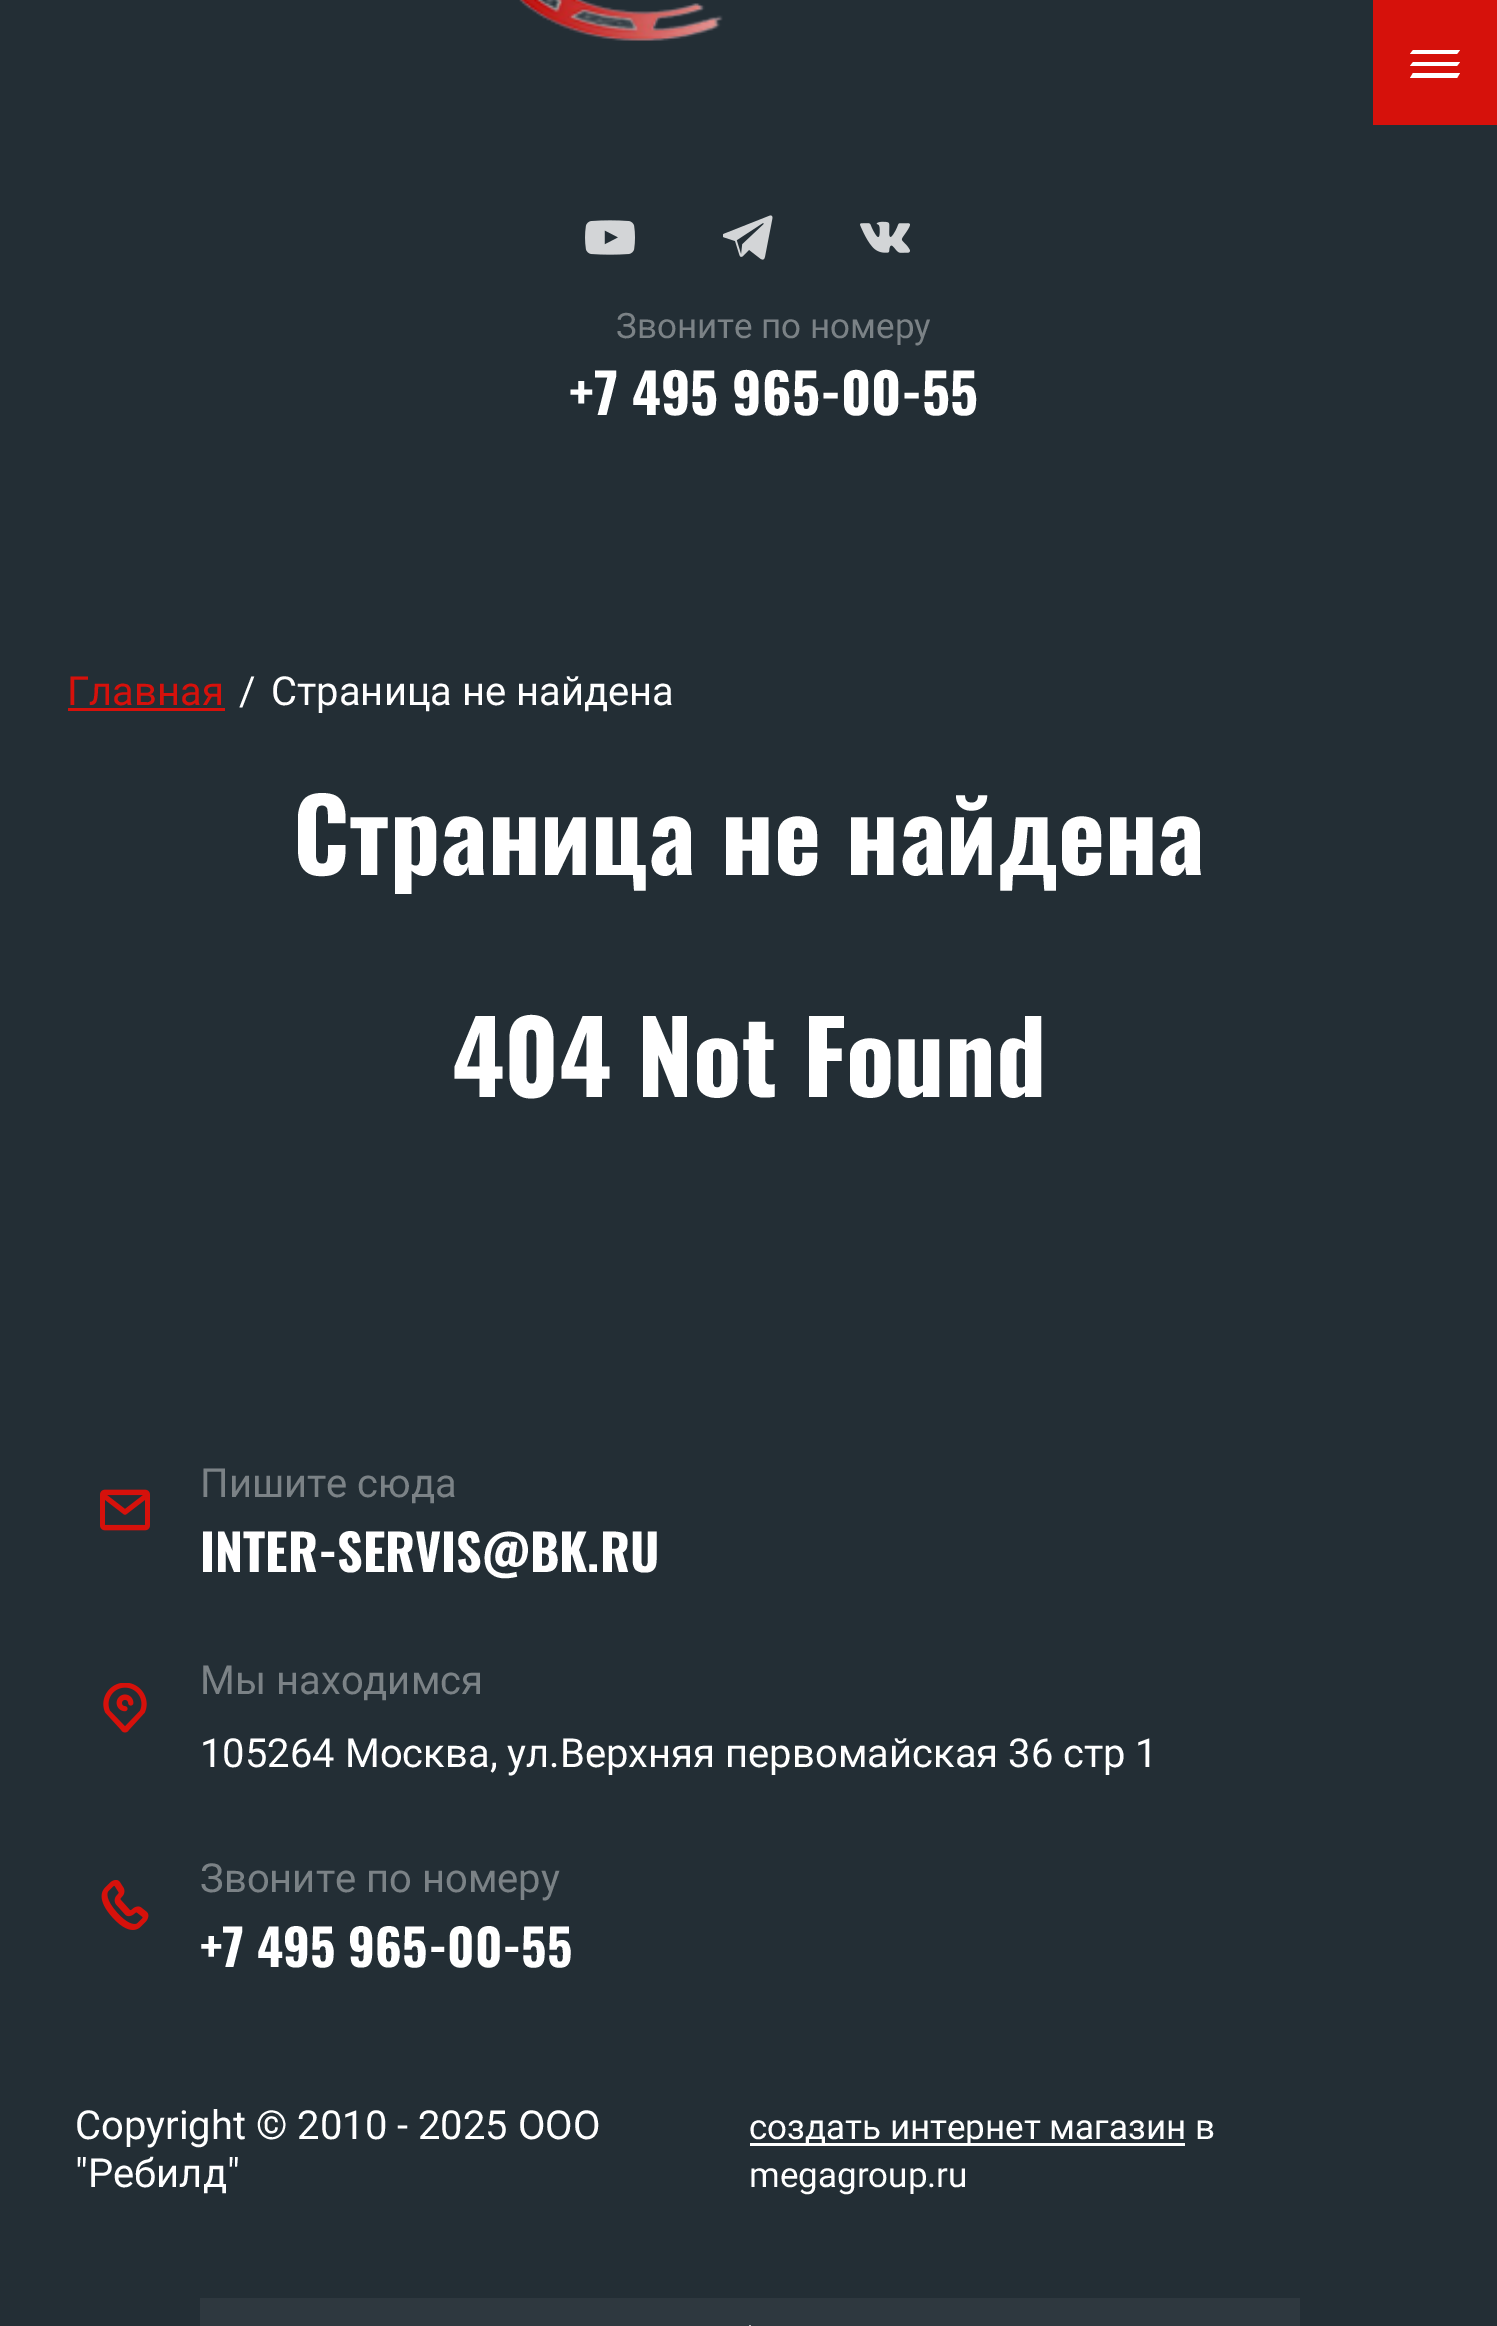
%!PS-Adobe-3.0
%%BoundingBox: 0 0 1497 2326
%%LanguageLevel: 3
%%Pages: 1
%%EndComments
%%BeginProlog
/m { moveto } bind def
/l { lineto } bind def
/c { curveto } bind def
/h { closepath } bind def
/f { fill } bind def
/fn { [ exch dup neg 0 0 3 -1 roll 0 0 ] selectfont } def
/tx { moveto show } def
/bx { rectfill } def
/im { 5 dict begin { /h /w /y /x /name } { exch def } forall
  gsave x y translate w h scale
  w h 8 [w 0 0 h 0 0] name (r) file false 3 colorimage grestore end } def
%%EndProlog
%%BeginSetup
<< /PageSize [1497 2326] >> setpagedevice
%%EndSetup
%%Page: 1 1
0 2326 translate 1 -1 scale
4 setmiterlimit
0.137 0.18 0.208 setrgbcolor
0 0 1497 2326 bx
0.839 0.067 0.043 setrgbcolor
1373 0 124 125 bx
1 setgray
1413 50 m 1460 50 l 1457 54 l 1410 54 l h 1413 62 m 1460 62 l 1457 66 l 1410 66 l h 1413 73 m 1460 73 l 1457 78 l 1410 78 l h eofill
(image0.raw) 519 0 204 41 im
(image1.raw) 585 220 50 35 im
(image2.raw) 723 215 50 45 im
(image3.raw) 860 221 50 32 im
/Roboto-Regular 35 fn
0.482 0.51 0.525 setrgbcolor
(Звоните по номеру) 616 338 tx
/Oswald-Bold 55 fn
1 setgray
(+7 495 965-00-55) 569 415 tx
/Roboto-Regular 40 fn
0.839 0.067 0.043 setrgbcolor
(Главная) 67 705 tx
68 708 157 3 bx
1 setgray
(/) 239 705 tx
(Страница не найдена) 271 705 tx
/Oswald-Bold 100 fn
(Страница не найдена) 293 875 tx
(404 Not Found) 452 1097 tx
(image4.raw) 100 1489 50 42 im
/Roboto-Regular 40 fn
0.482 0.51 0.525 setrgbcolor
(Пишите сюда) 200 1497 tx
/Oswald-Bold 50 fn
1 setgray
(INTER-SERVIS@BK.RU) 200 1572 tx
(image5.raw) 103 1683 44 50 im
/Roboto-Regular 40 fn
0.482 0.51 0.525 setrgbcolor
(Мы находимся) 200 1694 tx
1 setgray
(105264 Москва, ул.Верхняя первомайская 36 стр 1) 200 1767 tx
(image6.raw) 101 1880 48 50 im
0.482 0.51 0.525 setrgbcolor
(Звоните по номеру) 200 1892 tx
/Oswald-Bold 50 fn
1 setgray
(+7 495 965-00-55) 200 1967 tx
/Roboto-Regular 40 fn
(Copyright © 2010 - 2025 ООО) 75 2139 tx
("Ребилд") 75 2187 tx
750 2143 435 3 bx
/Roboto-Regular 35 fn
(создать интернет магазин в) 749 2139 tx
(megagroup.ru) 749 2187 tx
0.18 0.22 0.247 setrgbcolor
200 2298 1100 28 bx
1 setgray
799 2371 m 751 2326 l 751 2325 749 2325 749 2326 c 701 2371 l 700 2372 700 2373 701 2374 c 701 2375 703 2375 704 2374 c 750 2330 l 796 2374 l 798 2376 801 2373 799 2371 c h f
showpage
%%EOF
